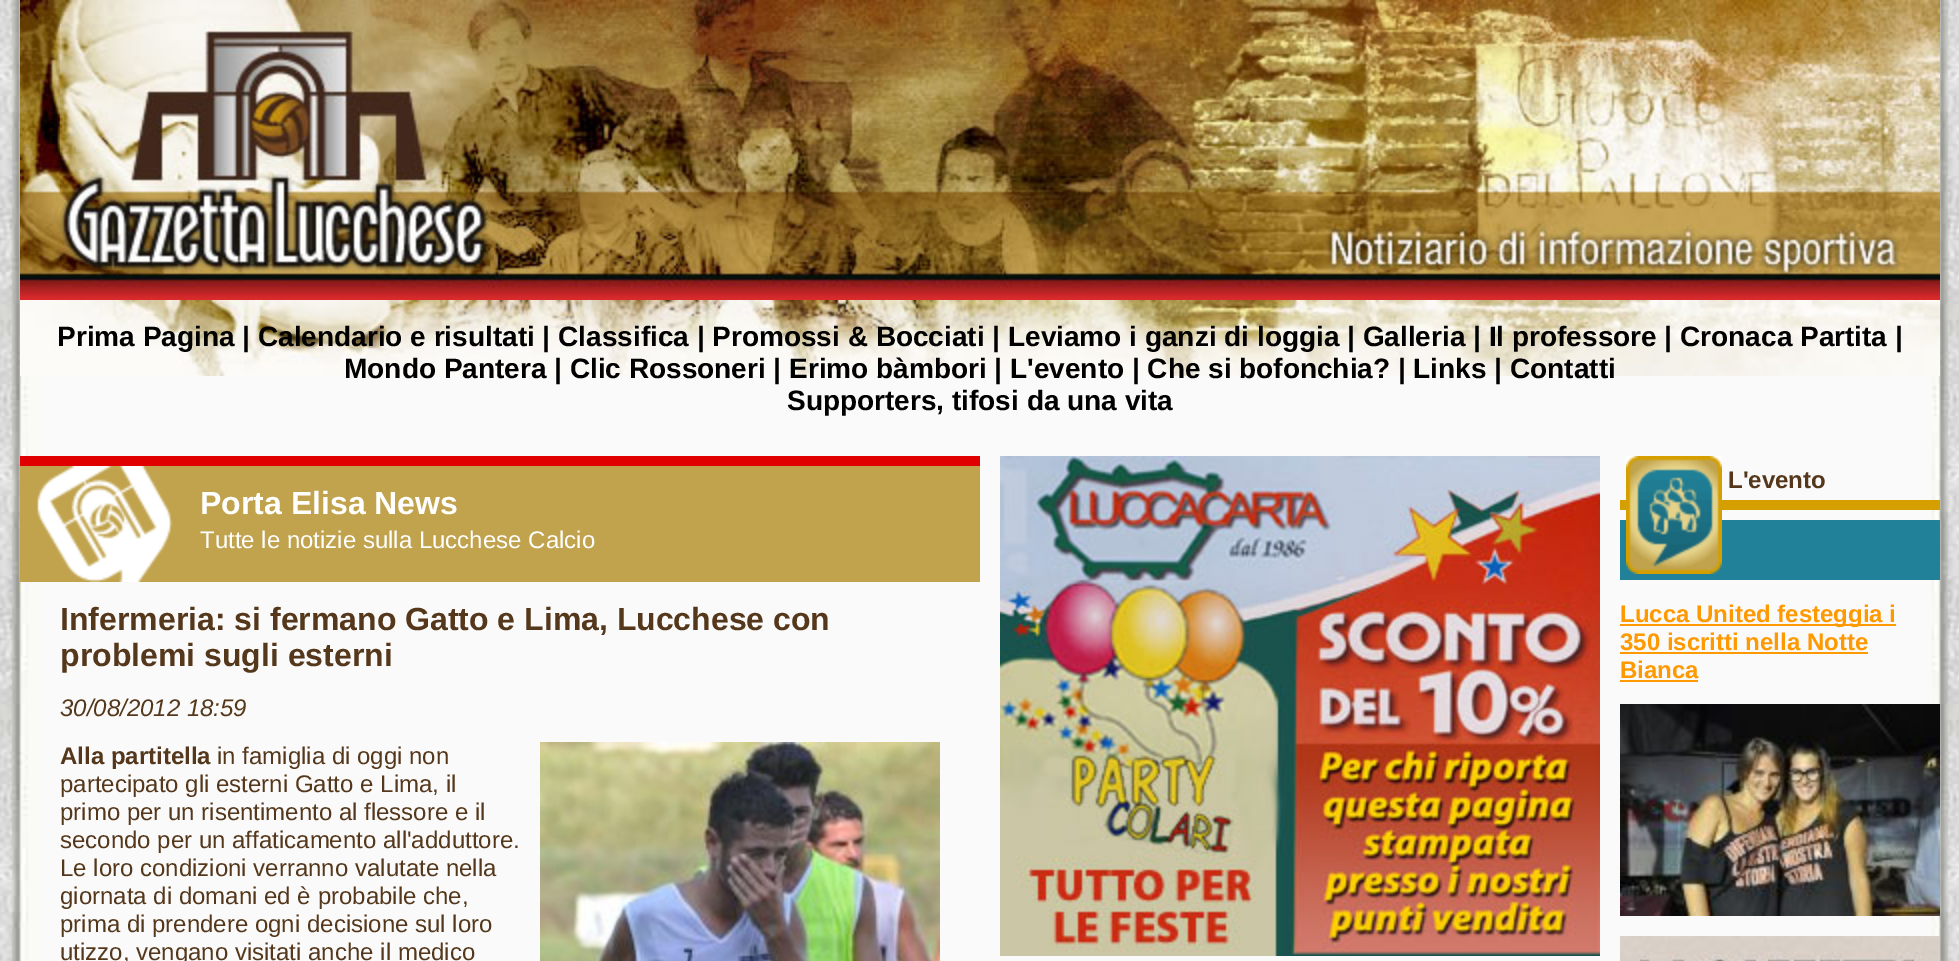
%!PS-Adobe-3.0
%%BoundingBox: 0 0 1959 961
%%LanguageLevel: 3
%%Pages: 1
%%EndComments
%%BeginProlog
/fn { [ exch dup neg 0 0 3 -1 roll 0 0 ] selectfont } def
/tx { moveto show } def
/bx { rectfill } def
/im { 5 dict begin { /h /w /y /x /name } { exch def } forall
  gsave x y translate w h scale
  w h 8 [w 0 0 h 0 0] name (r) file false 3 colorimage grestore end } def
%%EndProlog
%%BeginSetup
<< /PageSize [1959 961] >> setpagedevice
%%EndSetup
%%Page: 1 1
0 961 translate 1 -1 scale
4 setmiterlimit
1 setgray
0 0 1959 961 bx
(image0.raw) 0 0 1959 961 im
(image1.raw) 20 0 1920 300 im
(image2.raw) 60 24 430 246 im
(image3.raw) 20 300 1920 76 im
/LiberationSans-Bold 28 fn
0 setgray
(Prima Pagina | Calendario e risultati | Classifica | Promossi & Bocciati | Leviamo i ganzi di loggia | Galleria | Il professore | Cronaca Partita |) 57 346 tx
(Mondo Pantera | Clic Rossoneri | Erimo bàmbori | L'evento | Che si bofonchia? | Links | Contatti) 344 378 tx
(Supporters, tifosi da una vita) 787 410 tx
0.757 0.639 0.302 setrgbcolor
20 466 960 116 bx
0.882 0 0 setrgbcolor
20 456 960 10 bx
(image4.raw) 37 466 136 116 im
/LiberationSans-Bold 32 fn
1 setgray
(Porta Elisa News) 200 514 tx
/LiberationSans-Regular 24 fn
(Tutte le notizie sulla Lucchese Calcio) 200 548 tx
/LiberationSans-Bold 32 fn
0.333 0.22 0.11 setrgbcolor
(Infermeria: si fermano Gatto e Lima, Lucchese con) 60 630 tx
(problemi sugli esterni) 60 666 tx
/LiberationSans-Italic 24 fn
(30/08/2012 18:59) 60 716 tx
/LiberationSans-Bold 24 fn
(Alla partitella) 60 764 tx
/LiberationSans-Regular 24 fn
(in famiglia di oggi non) 217 764 tx
(partecipato gli esterni Gatto e Lima, il) 60 792 tx
(primo per un risentimento al flessore e il) 60 820 tx
(secondo per un affaticamento all'adduttore.) 60 848 tx
(Le loro condizioni verranno valutate nella) 60 876 tx
(giornata di domani ed è probabile che,) 60 904 tx
(prima di prendere ogni decisione sul loro) 60 932 tx
(utizzo, vengano visitati anche il medico) 60 960 tx
(image5.raw) 540 742 400 219 im
(image6.raw) 1000 456 600 500 im
0.835 0.624 0 setrgbcolor
1620 500 320 10 bx
0.125 0.506 0.6 setrgbcolor
1620 520 320 60 bx
(image7.raw) 1626 456 96 118 im
/LiberationSans-Bold 24 fn
0.333 0.22 0.11 setrgbcolor
(L'evento) 1728 488 tx
1 0.6 0 setrgbcolor
1620 624 276 2 bx
(Lucca United festeggia i) 1620 622 tx
(350 iscritti nella Notte) 1620 650 tx
1620 652 248 2 bx
(Bianca) 1620 678 tx
1620 680 78 2 bx
(image8.raw) 1620 704 320 212 im
(image9.raw) 1620 936 320 25 im
showpage
%%EOF
